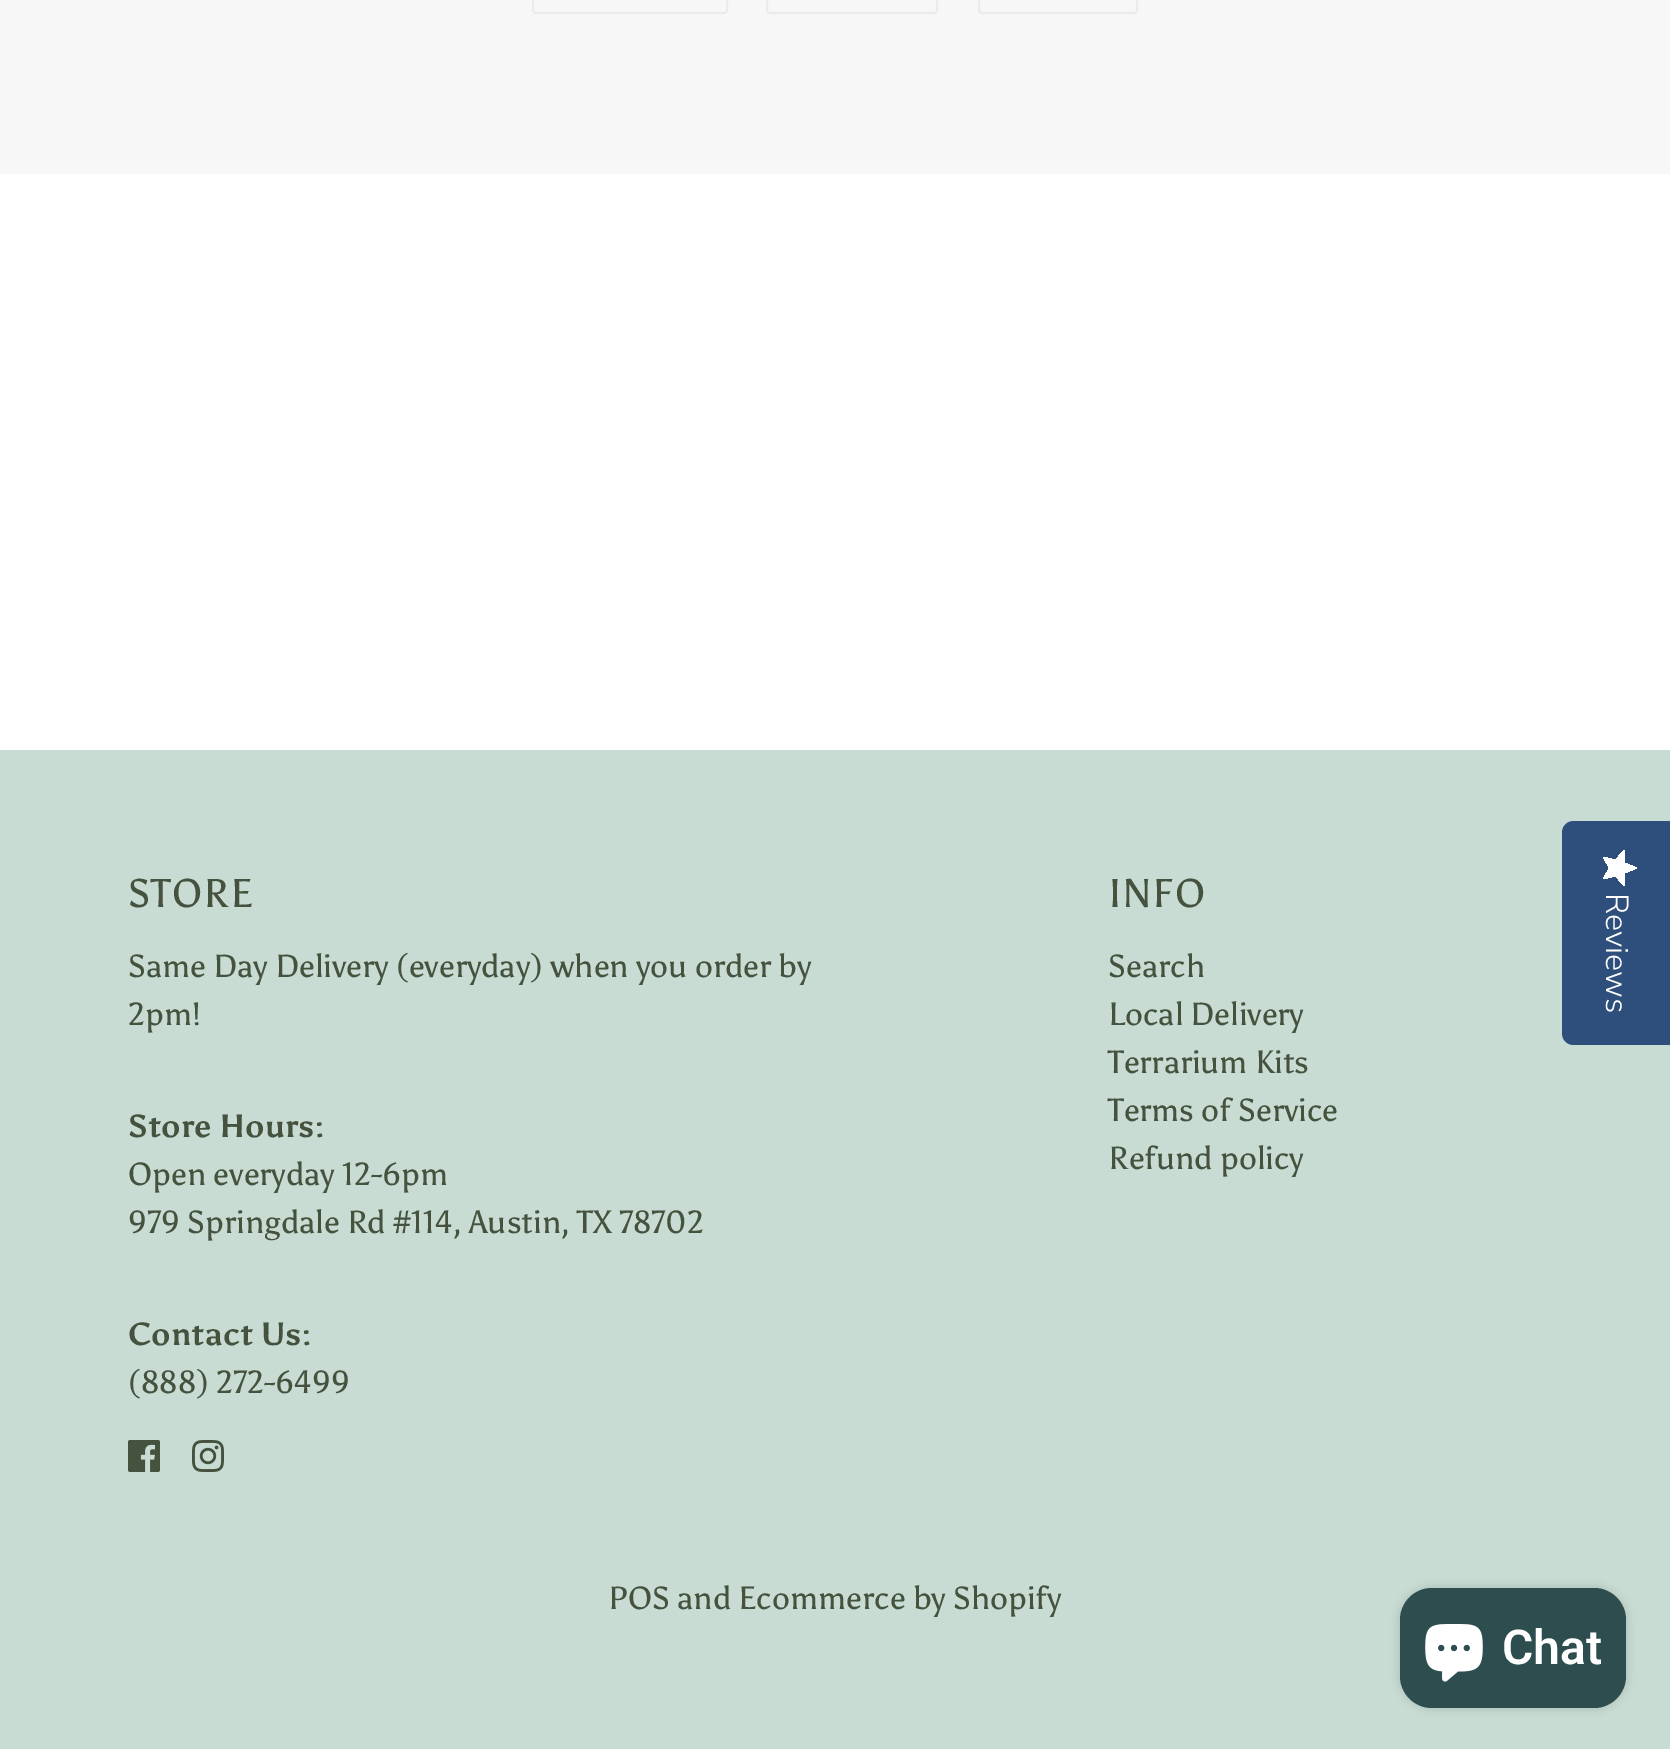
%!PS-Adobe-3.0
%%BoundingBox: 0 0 1670 1749
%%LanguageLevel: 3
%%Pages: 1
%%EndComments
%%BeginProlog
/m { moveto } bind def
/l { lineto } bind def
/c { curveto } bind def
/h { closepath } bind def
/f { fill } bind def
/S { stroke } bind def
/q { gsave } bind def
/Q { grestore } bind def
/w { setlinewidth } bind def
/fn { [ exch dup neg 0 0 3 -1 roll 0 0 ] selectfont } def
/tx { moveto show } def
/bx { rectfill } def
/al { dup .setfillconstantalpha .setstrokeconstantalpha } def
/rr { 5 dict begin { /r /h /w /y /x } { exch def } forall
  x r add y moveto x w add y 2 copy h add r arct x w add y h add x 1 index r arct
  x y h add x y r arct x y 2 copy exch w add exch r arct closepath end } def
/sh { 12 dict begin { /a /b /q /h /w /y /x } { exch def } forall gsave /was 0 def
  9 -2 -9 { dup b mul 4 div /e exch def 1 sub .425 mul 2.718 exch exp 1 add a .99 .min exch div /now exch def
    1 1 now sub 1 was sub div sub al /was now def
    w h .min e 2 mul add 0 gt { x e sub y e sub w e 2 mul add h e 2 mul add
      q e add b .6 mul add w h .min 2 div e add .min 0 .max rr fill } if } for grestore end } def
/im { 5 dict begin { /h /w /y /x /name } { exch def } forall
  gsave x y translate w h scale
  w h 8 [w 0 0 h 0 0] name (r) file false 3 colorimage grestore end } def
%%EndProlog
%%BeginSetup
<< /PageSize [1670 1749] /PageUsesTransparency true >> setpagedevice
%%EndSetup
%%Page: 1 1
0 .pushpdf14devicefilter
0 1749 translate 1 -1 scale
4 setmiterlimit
1 setgray
0 0 1670 1749 bx
0.969 setgray
0 0 1670 174 bx
0.922 setgray
2 w
533 -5 194 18 3 rr S
767 -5 170 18 3 rr S
979 -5 158 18 3 rr S
0.784 0.863 0.827 setrgbcolor
0 750 1670 999 bx
/Asul-Regular 40 fn
0.271 0.322 0.243 setrgbcolor
128 907 m 1 0 (STORE) ashow
/Asul-Regular 32 fn
(Same Day Delivery \(everyday\) when you order by) 128 977 tx
(2pm!) 128 1025 tx
/Asul-Bold 32 fn
(Store Hours:) 128 1137 tx
/Asul-Regular 32 fn
(Open everyday 12-6pm) 128 1185 tx
(979 Springdale Rd #114, Austin, TX 78702) 128 1233 tx
/Asul-Bold 32 fn
(Contact Us:) 128 1345 tx
/Asul-Regular 32 fn
(\(888\) 272-6499) 128 1393 tx
(image0.raw) 128 1440 32 32 im
(image1.raw) 192 1440 32 32 im
/Asul-Regular 40 fn
1108 907 m 1 0 (INFO) ashow
/Asul-Regular 32 fn
(Search) 1108 977 tx
(Local Delivery) 1108 1025 tx
(Terrarium Kits) 1108 1073 tx
(Terms of Service) 1108 1121 tx
(Refund policy) 1108 1169 tx
(POS and Ecommerce by Shopify) 608 1609 tx
0.18 0.31 0.486 setrgbcolor
1670 821 m 1670 1045 l 1574 1045 l 1567 1045 1562 1040 1562 1033 c 1562 833 l 1562 826 1567 821 1574 821 c h f
q 1609.5 868 m 1603 879 l 1615.5 876 l 1624 886 l 1625 873 l 1637 868 l 1625 863 l 1624 850 l 1615.5 860 l 1603 857 l h clip newpath
<< /ShadingType 2 /ColorSpace /DeviceRGB /Coords [1637 850 1637 886] /Extend [true true] /Function << /FunctionType 2 /Domain [0 1] /C0 [1 1 1] /C1 [1 1 1] /N 1 >> >> shfill Q
/NunitoSans-Light 32 fn
1 setgray
q 1606 893 translate 90 rotate 0 0 m (Reviews) show Q
0 setgray
1400 1588 226 120 32 5 0.15 sh
0.18 0.302 0.306 setrgbcolor
1400 1588 226 120 32 rr f
(image2.raw) 1425 1624 58 58 im
/Roboto-SemiBold 48 fn
1 setgray
(Chat) 1502 1664 tx
.poppdf14devicefilter showpage
%%EOF
